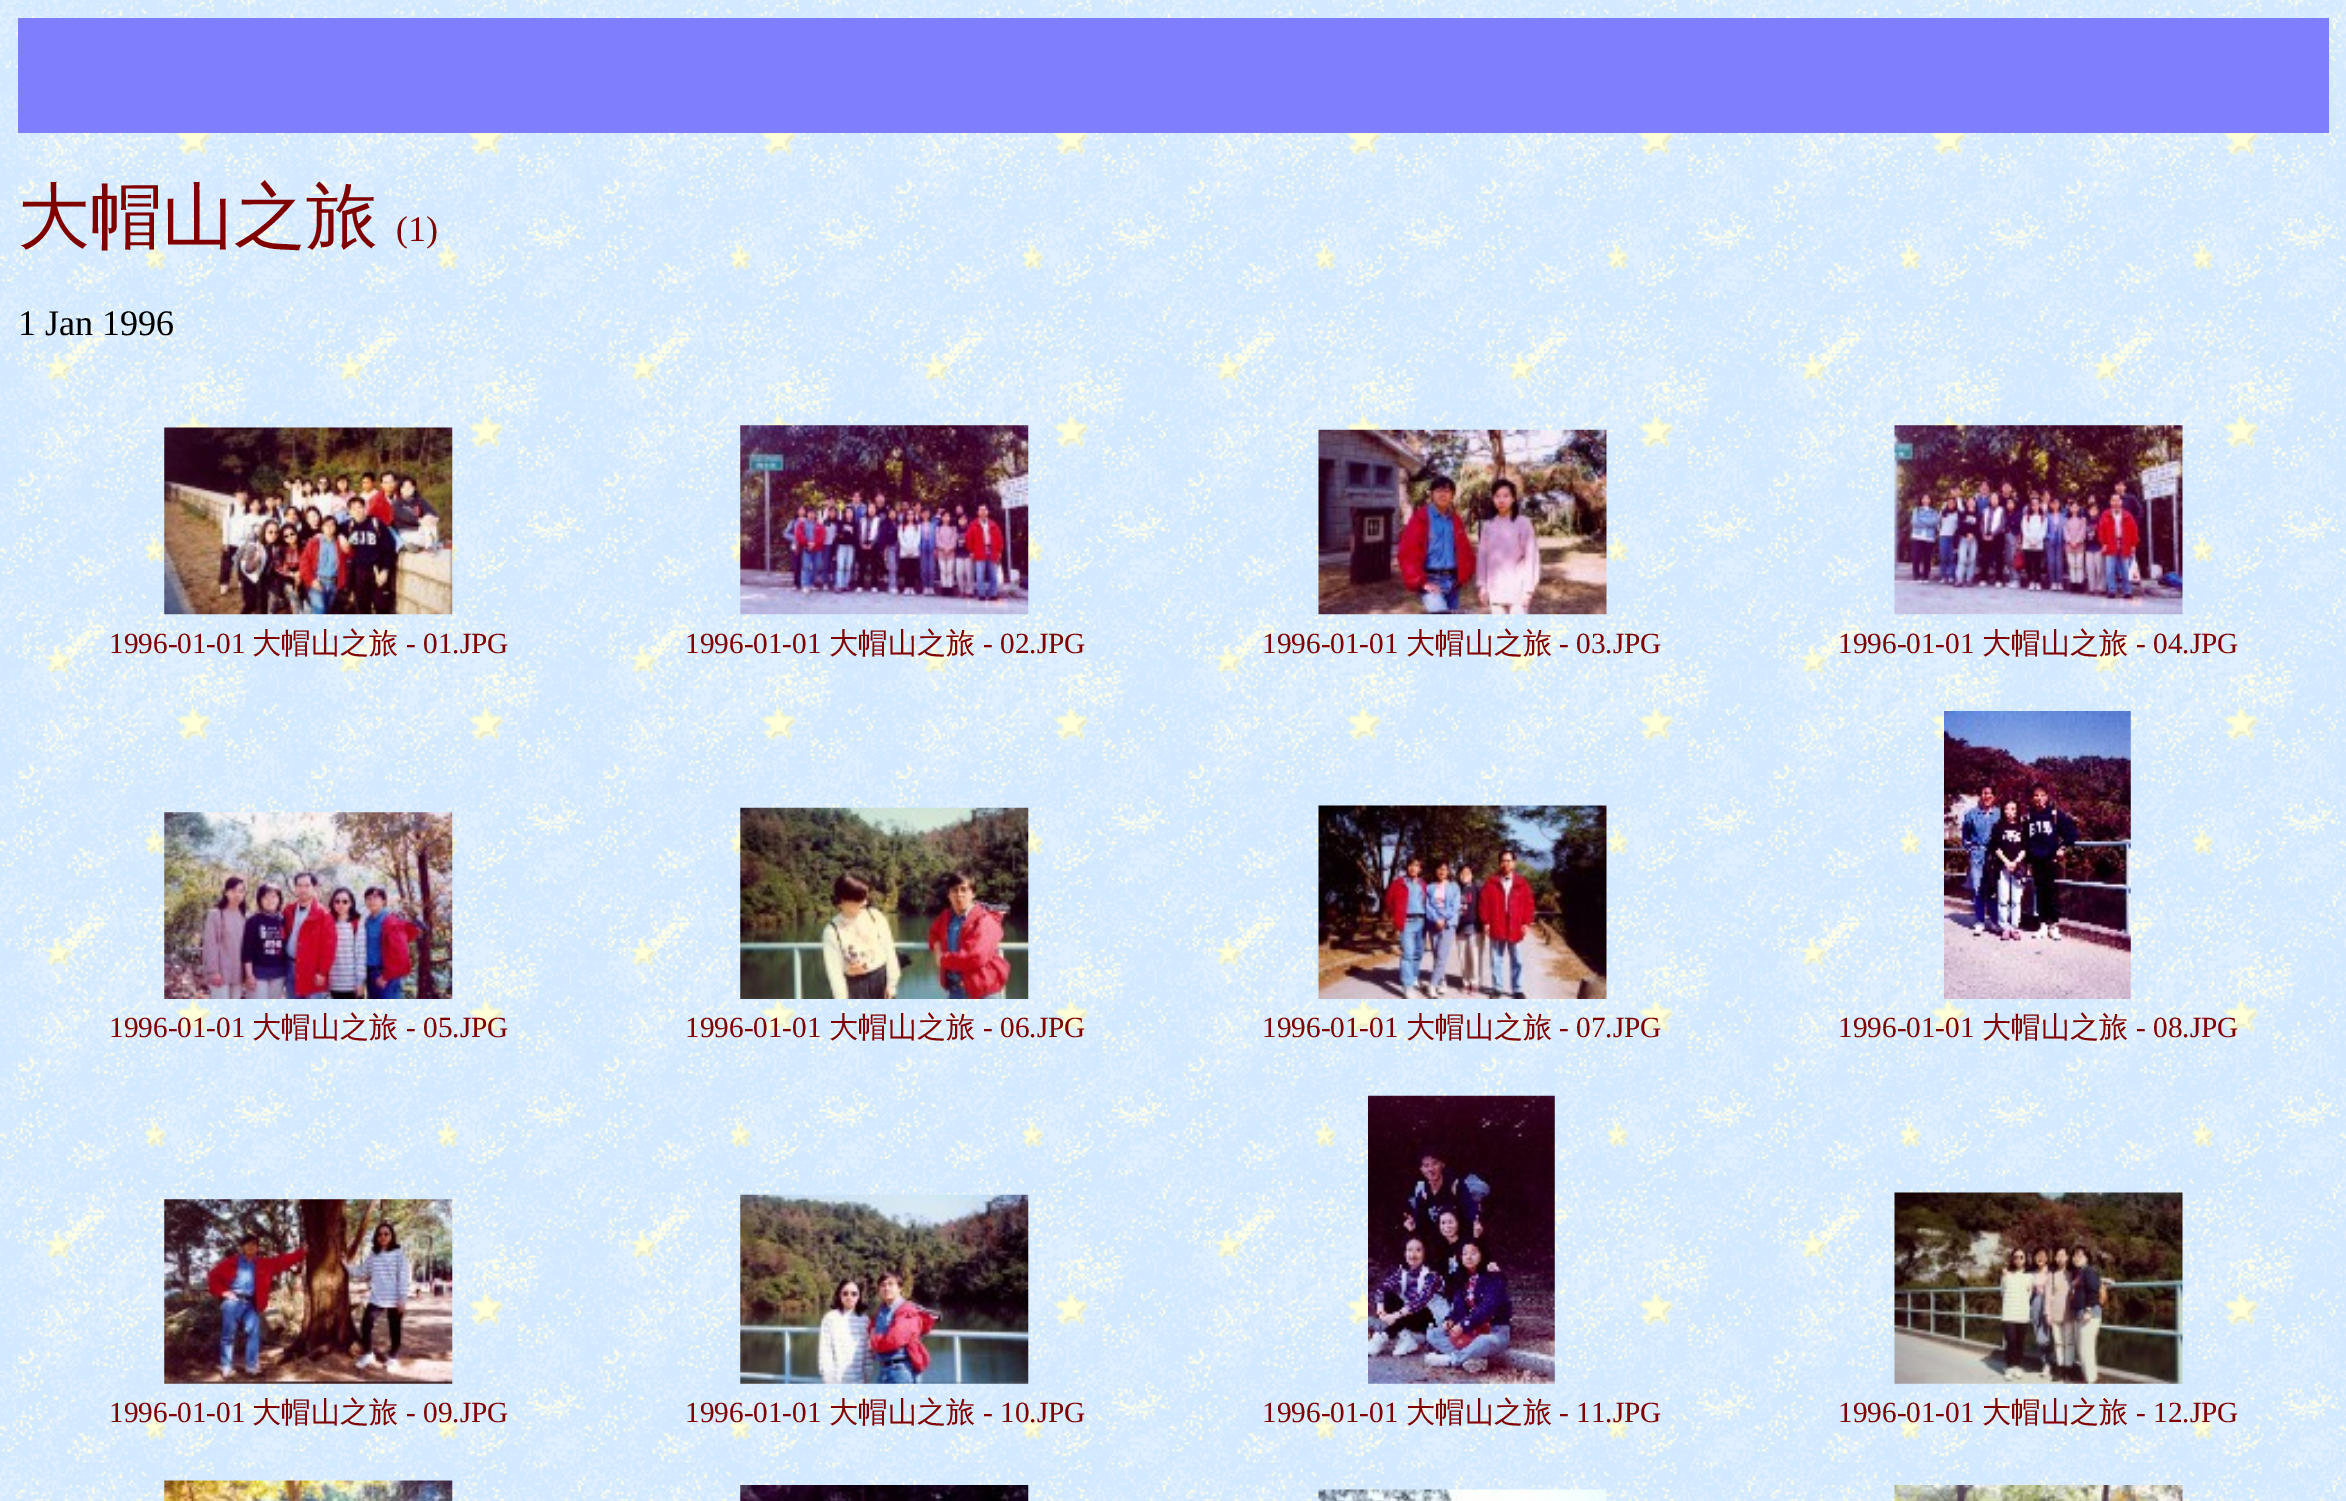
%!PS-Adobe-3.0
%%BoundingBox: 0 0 2346 1501
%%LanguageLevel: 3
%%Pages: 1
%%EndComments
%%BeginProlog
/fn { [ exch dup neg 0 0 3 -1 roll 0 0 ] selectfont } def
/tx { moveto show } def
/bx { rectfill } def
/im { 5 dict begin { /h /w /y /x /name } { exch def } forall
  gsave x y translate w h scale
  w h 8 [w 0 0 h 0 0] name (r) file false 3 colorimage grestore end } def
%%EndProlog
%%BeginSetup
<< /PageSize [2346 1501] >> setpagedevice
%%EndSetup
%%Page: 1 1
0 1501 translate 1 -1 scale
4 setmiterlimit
1 setgray
0 0 2346 1501 bx
(image0.raw) 0 0 2346 1501 im
0.498 0.498 0.992 setrgbcolor
18 18 2311 115 bx
/WenQuanYiZenHei-Medium 72 fn
0.502 0 0 setrgbcolor
(大帽山之旅) 18 241 tx
/LiberationSerif-Regular 36 fn
(\(1\)) 396 241 tx
0 setgray
(1 Jan 1996) 18 335 tx
(image1.raw) 164 427 289 188 im
(image2.raw) 740 425 289 190 im
(image3.raw) 1318 429 289 186 im
(image4.raw) 1894 425 289 190 im
/LiberationSerif-Regular 29.25 fn
0.502 0 0 setrgbcolor
(1996-01-01) 109 653 tx
/WenQuanYiZenHei-Medium 29.25 fn
(大帽山之旅) 252 653 tx
/LiberationSerif-Regular 29.25 fn
(- 01.JPG) 406 653 tx
(1996-01-01) 685 653 tx
/WenQuanYiZenHei-Medium 29.25 fn
(大帽山之旅) 829 653 tx
/LiberationSerif-Regular 29.25 fn
(- 02.JPG) 983 653 tx
(1996-01-01) 1262 653 tx
/WenQuanYiZenHei-Medium 29.25 fn
(大帽山之旅) 1406 653 tx
/LiberationSerif-Regular 29.25 fn
(- 03.JPG) 1559 653 tx
(1996-01-01) 1838 653 tx
/WenQuanYiZenHei-Medium 29.25 fn
(大帽山之旅) 1982 653 tx
/LiberationSerif-Regular 29.25 fn
(- 04.JPG) 2136 653 tx
(image5.raw) 164 812 289 187 im
(image6.raw) 740 807 289 192 im
(image7.raw) 1318 805 289 194 im
(image8.raw) 1944 711 187 288 im
(1996-01-01) 109 1037 tx
/WenQuanYiZenHei-Medium 29.25 fn
(大帽山之旅) 252 1037 tx
/LiberationSerif-Regular 29.25 fn
(- 05.JPG) 406 1037 tx
(1996-01-01) 685 1037 tx
/WenQuanYiZenHei-Medium 29.25 fn
(大帽山之旅) 829 1037 tx
/LiberationSerif-Regular 29.25 fn
(- 06.JPG) 983 1037 tx
(1996-01-01) 1262 1037 tx
/WenQuanYiZenHei-Medium 29.25 fn
(大帽山之旅) 1406 1037 tx
/LiberationSerif-Regular 29.25 fn
(- 07.JPG) 1559 1037 tx
(1996-01-01) 1838 1037 tx
/WenQuanYiZenHei-Medium 29.25 fn
(大帽山之旅) 1982 1037 tx
/LiberationSerif-Regular 29.25 fn
(- 08.JPG) 2136 1037 tx
(image9.raw) 164 1199 289 185 im
(image10.raw) 740 1194 289 190 im
(image11.raw) 1368 1095 187 289 im
(image12.raw) 1894 1192 289 192 im
(1996-01-01) 109 1422 tx
/WenQuanYiZenHei-Medium 29.25 fn
(大帽山之旅) 252 1422 tx
/LiberationSerif-Regular 29.25 fn
(- 09.JPG) 406 1422 tx
(1996-01-01) 685 1422 tx
/WenQuanYiZenHei-Medium 29.25 fn
(大帽山之旅) 829 1422 tx
/LiberationSerif-Regular 29.25 fn
(- 10.JPG) 983 1422 tx
(1996-01-01) 1262 1422 tx
/WenQuanYiZenHei-Medium 29.25 fn
(大帽山之旅) 1406 1422 tx
/LiberationSerif-Regular 29.25 fn
(- 11.JPG) 1559 1422 tx
(1996-01-01) 1838 1422 tx
/WenQuanYiZenHei-Medium 29.25 fn
(大帽山之旅) 1982 1422 tx
/LiberationSerif-Regular 29.25 fn
(- 12.JPG) 2136 1422 tx
(image13.raw) 164 1480 289 21 im
(image14.raw) 740 1485 289 16 im
(image15.raw) 1318 1489 289 12 im
(image16.raw) 1894 1485 289 16 im
showpage
%%EOF
